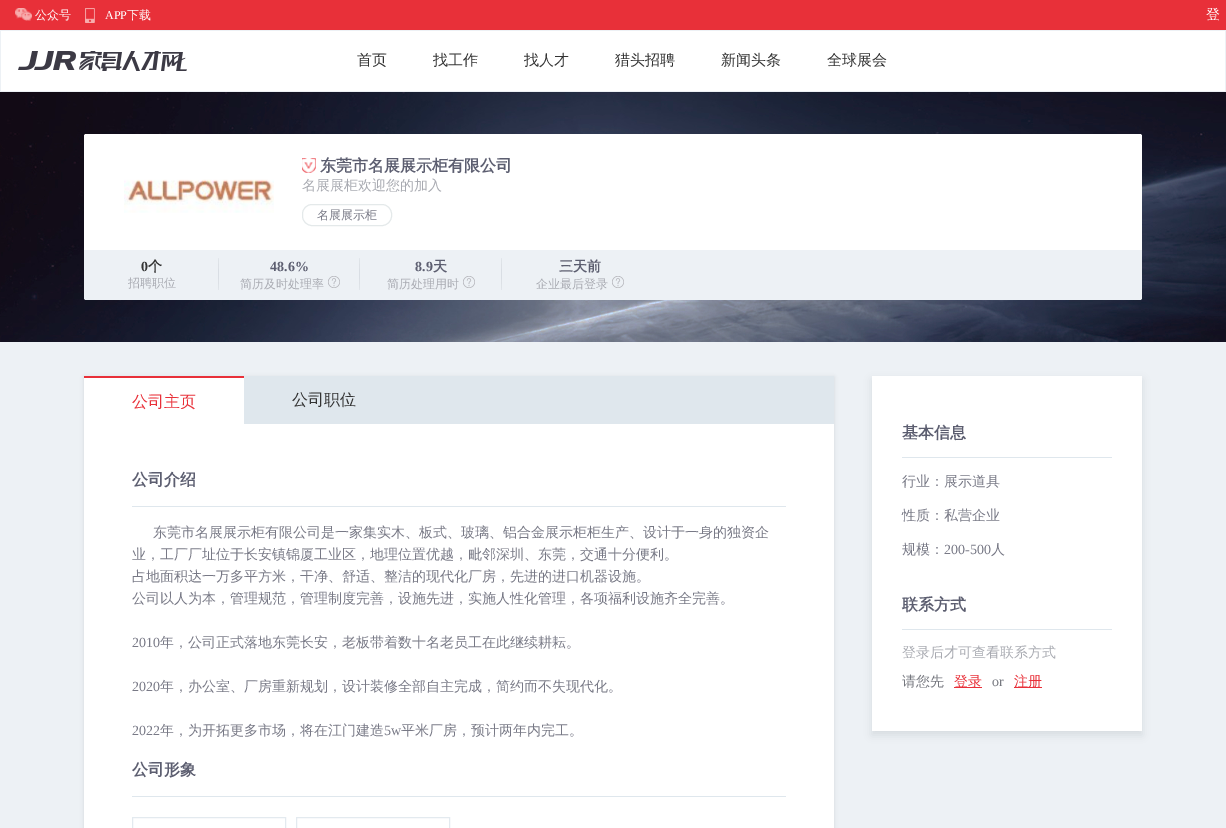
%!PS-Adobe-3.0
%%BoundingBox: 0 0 1226 828
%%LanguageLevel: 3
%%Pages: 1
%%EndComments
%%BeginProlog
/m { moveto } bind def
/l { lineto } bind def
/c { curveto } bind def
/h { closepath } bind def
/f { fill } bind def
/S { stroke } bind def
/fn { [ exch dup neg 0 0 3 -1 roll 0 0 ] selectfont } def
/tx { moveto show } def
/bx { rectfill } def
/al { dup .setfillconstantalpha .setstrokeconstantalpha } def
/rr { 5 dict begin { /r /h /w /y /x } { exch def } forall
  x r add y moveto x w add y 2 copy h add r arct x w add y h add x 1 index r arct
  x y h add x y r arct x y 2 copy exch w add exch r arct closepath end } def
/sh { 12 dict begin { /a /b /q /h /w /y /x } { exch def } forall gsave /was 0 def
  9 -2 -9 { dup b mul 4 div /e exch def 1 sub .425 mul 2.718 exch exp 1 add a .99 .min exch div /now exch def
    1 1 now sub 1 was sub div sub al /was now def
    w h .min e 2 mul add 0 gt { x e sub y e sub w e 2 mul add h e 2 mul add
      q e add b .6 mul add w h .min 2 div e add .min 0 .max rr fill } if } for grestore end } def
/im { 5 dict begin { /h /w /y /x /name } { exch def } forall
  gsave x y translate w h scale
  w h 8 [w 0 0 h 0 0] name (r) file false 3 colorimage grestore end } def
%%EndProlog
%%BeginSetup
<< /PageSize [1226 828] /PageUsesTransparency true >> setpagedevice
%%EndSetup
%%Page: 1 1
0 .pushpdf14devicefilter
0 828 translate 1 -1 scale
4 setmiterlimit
0.929 0.945 0.961 setrgbcolor
0 0 1226 828 bx
0.91 0.188 0.224 setrgbcolor
0 0 1226 30 bx
(image0.raw) 15 8 17 13 im
/WenQuanYiZenHei-Medium 12 fn
1 setgray
(公众号) 35 19 tx
(image1.raw) 85 8 10 15 im
/LiberationSerif-Regular 12 fn
(APP) 105 19 tx
/WenQuanYiZenHei-Medium 12 fn
(下载) 127 19 tx
/WenQuanYiZenHei-Medium 14 fn
(登) 1206 19 tx
1 31 1224 60 bx
(image2.raw) 18 51 169 20 im
/WenQuanYiZenHei-Medium 15 fn
0.2 setgray
(首页) 357 65 tx
(找工作) 433 65 tx
(找人才) 524 65 tx
(猎头招聘) 615 65 tx
(新闻头条) 721 65 tx
(全球展会) 827 65 tx
(image3.raw) 0 92 1226 250 im
1 setgray
86 134 m 1140 134 l 1141 134 1142 135 1142 136 c 1142 250 l 84 250 l 84 136 l 84 135 85 134 86 134 c h f
(image4.raw) 124 179 150 34 im
(image5.raw) 302 158 14 15 im
/WenQuanYiZenHei-Bold 16 fn
0.361 0.369 0.439 setrgbcolor
(东莞市名展展示柜有限公司) 320 171 tx
/WenQuanYiZenHei-Medium 14 fn
0.659 0.667 0.694 setrgbcolor
(名展展柜欢迎您的加入) 302 190 tx
0.894 0.914 0.918 setrgbcolor
302.5 204.5 89 21 9.5 rr S
/WenQuanYiZenHei-Medium 12 fn
0.471 0.475 0.525 setrgbcolor
(名展展示柜) 317 219 tx
0.929 0.945 0.961 setrgbcolor
84 250 m 1142 250 l 1142 298 l 1142 299 1141 300 1140 300 c 86 300 l 85 300 84 299 84 298 c h f
(image6.raw) 218 258 1 32 im
/LiberationSerif-Bold 14 fn
0.2 setgray
(0) 141 271 tx
/WenQuanYiZenHei-Bold 14 fn
(个) 148 271 tx
/WenQuanYiZenHei-Medium 12 fn
0.659 0.667 0.694 setrgbcolor
(招聘职位) 128 287 tx
(image6.raw) 359 258 1 32 im
/LiberationSerif-Bold 14 fn
0.361 0.369 0.439 setrgbcolor
(48.6%) 270 271 tx
/WenQuanYiZenHei-Medium 12 fn
0.659 0.667 0.694 setrgbcolor
(简历及时处理率) 240 288 tx
(image7.raw) 328 276 12 12 im
(image6.raw) 501 258 1 32 im
/LiberationSerif-Bold 14 fn
0.361 0.369 0.439 setrgbcolor
(8.9) 415 271 tx
/WenQuanYiZenHei-Bold 14 fn
(天) 433 271 tx
/WenQuanYiZenHei-Medium 12 fn
0.659 0.667 0.694 setrgbcolor
(简历处理用时) 387 288 tx
(image7.raw) 463 276 12 12 im
/WenQuanYiZenHei-Bold 14 fn
0.361 0.369 0.439 setrgbcolor
(三天前) 559 271 tx
/WenQuanYiZenHei-Medium 12 fn
0.659 0.667 0.694 setrgbcolor
(企业最后登录) 536 288 tx
(image7.raw) 612 276 12 12 im
0 setgray
84 377 750 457 0 2 0.1 sh
0.875 0.906 0.929 setrgbcolor
244 376 590 48 bx
1 setgray
84 378 160 46 bx
0.91 0.188 0.224 setrgbcolor
84 376 160 2 bx
/WenQuanYiZenHei-Medium 16 fn
(公司主页) 132 407 tx
0.2 setgray
(公司职位) 292 405 tx
1 setgray
84 424 750 404 bx
0.875 0.906 0.929 setrgbcolor
132 506 654 1 bx
/WenQuanYiZenHei-Bold 16 fn
0.361 0.369 0.439 setrgbcolor
(公司介绍) 132 485 tx
/WenQuanYiZenHei-Medium 14 fn
0.471 0.475 0.525 setrgbcolor
(东莞市名展展示柜有限公司是一家集实木、板式、玻璃、铝合金展示柜柜生产、设计于一身的独资企) 153 537 tx
(业，工厂厂址位于长安镇锦厦工业区，地理位置优越，毗邻深圳、东莞，交通十分便利。) 132 559 tx
(占地面积达一万多平方米，干净、舒适、整洁的现代化厂房，先进的进口机器设施。) 132 581 tx
(公司以人为本，管理规范，管理制度完善，设施先进，实施人性化管理，各项福利设施齐全完善。) 132 603 tx
/LiberationSerif-Regular 14 fn
(2010) 132 647 tx
/WenQuanYiZenHei-Medium 14 fn
(年，公司正式落地东莞长安，老板带着数十名老员工在此继续耕耘。) 160 647 tx
/LiberationSerif-Regular 14 fn
(2020) 132 691 tx
/WenQuanYiZenHei-Medium 14 fn
(年，办公室、厂房重新规划，设计装修全部自主完成，简约而不失现代化。) 160 691 tx
/LiberationSerif-Regular 14 fn
(2022) 132 735 tx
/WenQuanYiZenHei-Medium 14 fn
(年，为开拓更多市场，将在江门建造) 160 735 tx
/LiberationSerif-Regular 14 fn
(5w) 384 735 tx
/WenQuanYiZenHei-Medium 14 fn
(平米厂房，预计两年内完工。) 401 735 tx
0.875 0.906 0.929 setrgbcolor
132 796 654 1 bx
/WenQuanYiZenHei-Bold 16 fn
0.361 0.369 0.439 setrgbcolor
(公司形象) 132 775 tx
0.89 0.918 0.937 setrgbcolor
132.5 817.5 153 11 rectstroke
296.5 817.5 153 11 rectstroke
0.027 0.067 0.106 setrgbcolor
872 380 270 355 0 4 0.1 sh
1 setgray
872 376 270 355 bx
0.875 0.906 0.929 setrgbcolor
902 457 210 1 bx
0.361 0.369 0.439 setrgbcolor
(基本信息) 902 438 tx
/WenQuanYiZenHei-Medium 14 fn
0.471 0.475 0.525 setrgbcolor
(行业：展示道具) 902 486 tx
(性质：私营企业) 902 520 tx
(规模：) 902 554 tx
/LiberationSerif-Regular 14 fn
(200-500) 944 554 tx
/WenQuanYiZenHei-Medium 14 fn
(人) 991 554 tx
0.875 0.906 0.929 setrgbcolor
902 629 210 1 bx
/WenQuanYiZenHei-Bold 16 fn
0.361 0.369 0.439 setrgbcolor
(联系方式) 902 610 tx
/WenQuanYiZenHei-Medium 14 fn
0.659 0.667 0.694 setrgbcolor
(登录后才可查看联系方式) 902 657 tx
0.463 0.471 0.498 setrgbcolor
(请您先) 902 686 tx
0.91 0.188 0.224 setrgbcolor
954 687 28 1 bx
(登录) 954 686 tx
/LiberationSerif-Regular 14 fn
0.463 0.471 0.498 setrgbcolor
(or) 992 686 tx
0.91 0.188 0.224 setrgbcolor
1014 687 28 1 bx
/WenQuanYiZenHei-Medium 14 fn
(注册) 1014 686 tx
.poppdf14devicefilter showpage
%%EOF
